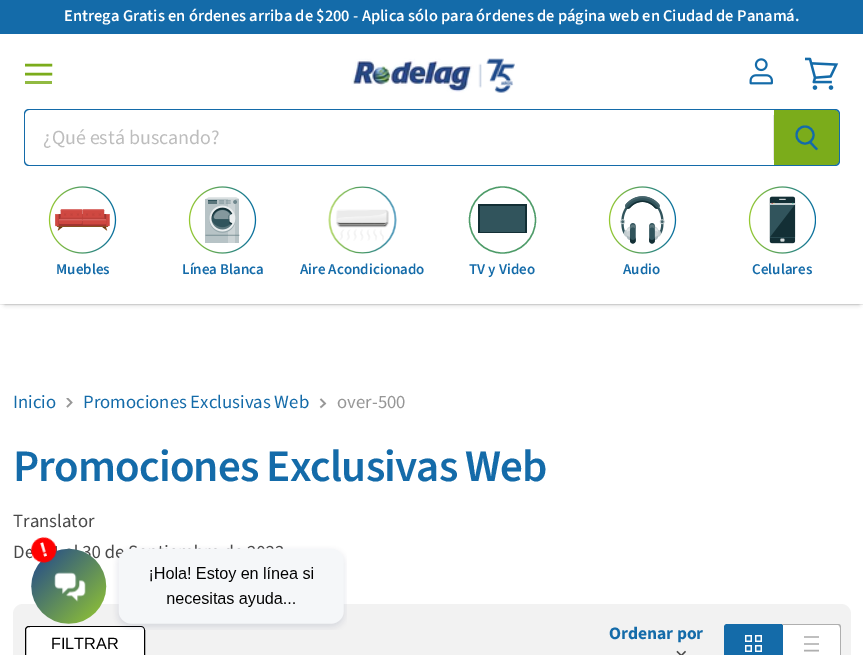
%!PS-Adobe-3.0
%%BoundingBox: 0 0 863 655
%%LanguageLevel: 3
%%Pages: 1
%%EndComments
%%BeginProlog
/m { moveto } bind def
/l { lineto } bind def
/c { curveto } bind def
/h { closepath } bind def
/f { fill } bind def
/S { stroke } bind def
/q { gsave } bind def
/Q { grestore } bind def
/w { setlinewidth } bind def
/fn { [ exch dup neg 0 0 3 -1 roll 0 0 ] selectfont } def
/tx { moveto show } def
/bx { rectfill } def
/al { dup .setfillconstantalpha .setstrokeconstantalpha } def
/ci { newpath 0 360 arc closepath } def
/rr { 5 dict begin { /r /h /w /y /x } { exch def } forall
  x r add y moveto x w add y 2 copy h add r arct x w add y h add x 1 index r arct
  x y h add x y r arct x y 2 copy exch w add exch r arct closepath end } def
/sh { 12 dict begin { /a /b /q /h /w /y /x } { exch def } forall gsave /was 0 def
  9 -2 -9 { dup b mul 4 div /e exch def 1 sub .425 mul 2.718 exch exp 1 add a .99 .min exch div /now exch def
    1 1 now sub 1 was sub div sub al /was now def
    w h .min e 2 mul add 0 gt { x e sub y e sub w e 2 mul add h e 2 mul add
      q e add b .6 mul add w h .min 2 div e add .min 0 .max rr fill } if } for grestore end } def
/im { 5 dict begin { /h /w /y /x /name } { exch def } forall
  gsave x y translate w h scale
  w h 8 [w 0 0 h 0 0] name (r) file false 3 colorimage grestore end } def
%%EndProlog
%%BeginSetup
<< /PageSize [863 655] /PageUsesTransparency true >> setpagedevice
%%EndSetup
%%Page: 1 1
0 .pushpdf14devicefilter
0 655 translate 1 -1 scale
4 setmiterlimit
1 setgray
0 0 863 655 bx
0.078 0.42 0.663 setrgbcolor
0 0 863 34 bx
/SourceSansPro-SemiBold 16.4 fn
1 setgray
(Entrega Gratis en órdenes arriba de $200 - Aplica sólo para órdenes de página web en Ciudad de Panamá.) 64 21 tx
0.929 setgray
0 304 863 1 bx
q
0 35 m 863 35 l 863 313 l 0 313 l h 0 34 m 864 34 l 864 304 l 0 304 l h eoclip newpath
0 setgray
5 44 854 260 0 2.5 0.3 sh
Q
q
25 63 28 22 rectclip
0.482 0.675 0.106 setrgbcolor
2.5 w
2 setlinecap
1 setlinejoin
51 65 m 26 65 l 51 74 m 26 74 l S
Q
0.569 0.729 0.255 setrgbcolor
25 81 27 3 bx
(image0.raw) 749 58 24 27 im
(image1.raw) 805 57 34 33 im
(image2.raw) 351 58 164 35 im
0.078 0.42 0.663 setrgbcolor
29 109 m 774 109 l 774 166 l 29 166 l 26 166 24 164 24 161 c 24 114 l 24 111 26 109 29 109 c h 29 110 m 774 110 l 774 165 l 29 165 l 27 165 25 163 25 161 c 25 114 l 25 112 27 110 29 110 c h eofill
/SourceSansPro-Regular 20 fn
0.741 setgray
(¿Qué está buscando?) 43 144 tx
0.482 0.675 0.106 setrgbcolor
774 110 m 835 110 l 837 110 839 112 839 114 c 839 161 l 839 163 837 165 835 165 c 774 165 l h f
0.078 0.42 0.663 setrgbcolor
774 109 m 835 109 l 838 109 840 111 840 114 c 840 161 l 840 164 838 166 835 166 c 774 166 l h 774 110 m 835 110 l 837 110 839 112 839 114 c 839 161 l 839 163 837 165 835 165 c 774 165 l h eofill
0.898 setgray
773 115 1 45 bx
0.078 0.42 0.663 setrgbcolor
2.1 w
817 149.5 m 810 142 l S
805 135 8.5 ci S
(image3.raw) 48 186 69 68 im
/SourceSansPro-SemiBold 15 fn
(Muebles) 56 274 tx
(image4.raw) 188 186 69 68 im
(Línea Blanca) 182 274 tx
(image5.raw) 328 186 69 68 im
(Aire Acondicionado) 300 274 tx
0.192 0.329 0.361 setrgbcolor
480 206 45 26 bx
0.075 0.184 0.208 setrgbcolor
525 206 m 525 232 l 480 232 l 480 206 l 525 206 l 527 204 m 478 204 l 478 233 l 527 233 l h f
0.302 0.608 0.408 setrgbcolor
1.3 w
502.5 220 33 ci S
0.078 0.42 0.663 setrgbcolor
(TV y Video) 469 274 tx
(image6.raw) 608 186 69 68 im
(Audio) 623 274 tx
(image7.raw) 748 186 68 68 im
(Celulares) 752 274 tx
/SourceSansPro-Regular 18.75 fn
(Inicio) 13 408 tx
q
66.5 408 m 66.5 398 l 72.5 398 l 72.5 408 l h clip newpath
0.592 setgray
1.6 w
67 407 m 71.5 402.5 l 67 398 l S
Q
(Promociones Exclusivas Web) 83 408 tx
0.592 setgray
1.6 w
320.5 407.5 m 325 403.5 l 320.5 399 l S
(over-500) 337 408 tx
/SourceSansPro-SemiBold 45 fn
0.078 0.42 0.663 setrgbcolor
13 481 m -0.9 0 (Promociones Exclusivas Web) ashow
/SourceSansPro-Regular 18.75 fn
0.286 setgray
(Translator) 13 527 tx
(De) 13 558 tx
(0 d) 92 558 tx
0.949 setgray
13 604 838 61 10 rr f
1 setgray
25.5 626.5 119 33 3.5 rr q f Q
0 setgray
1 w
S
/LiberationSans-Regular 16.25 fn
(FILTRAR) 51 649 tx
/SourceSansPro-Bold 17.5 fn
0.078 0.42 0.663 setrgbcolor
(Ordenar por) 609 639 tx
(image8.raw) 676 650 10 5 im
728 624 m 783 624 l 783 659 l 728 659 l 726 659 724 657 724 655 c 724 628 l 724 626 726 624 728 624 c h f
728 624 m 782 624 l 782 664 l 728 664 l 725 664 724 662 724 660 c 724 628 l 724 625 725 624 728 624 c h 728 625 m 782 625 l 782 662 l 728 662 l 726 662 725 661 725 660 c 725 628 l 725 626 726 625 728 625 c h eofill
(image9.raw) 745 635 17 17 im
1 setgray
783 624 m 837 624 l 839 624 841 626 841 628 c 841 655 l 841 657 839 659 837 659 c 783 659 l h f
0.686 setgray
782 624 m 838 624 l 840 624 841 625 841 628 c 841 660 l 841 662 840 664 838 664 c 782 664 l h 782 625 m 838 625 l 839 625 840 626 840 628 c 840 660 l 840 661 839 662 838 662 c 782 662 l h eofill
0.749 setgray
804 636 15 2 bx
804 643 15 2 bx
0.686 setgray
1.6 w
1 setlinejoin
804 650.5 m 819 650.5 l S
(image10.raw) 30 536 317 94 im
.poppdf14devicefilter showpage
%%EOF
